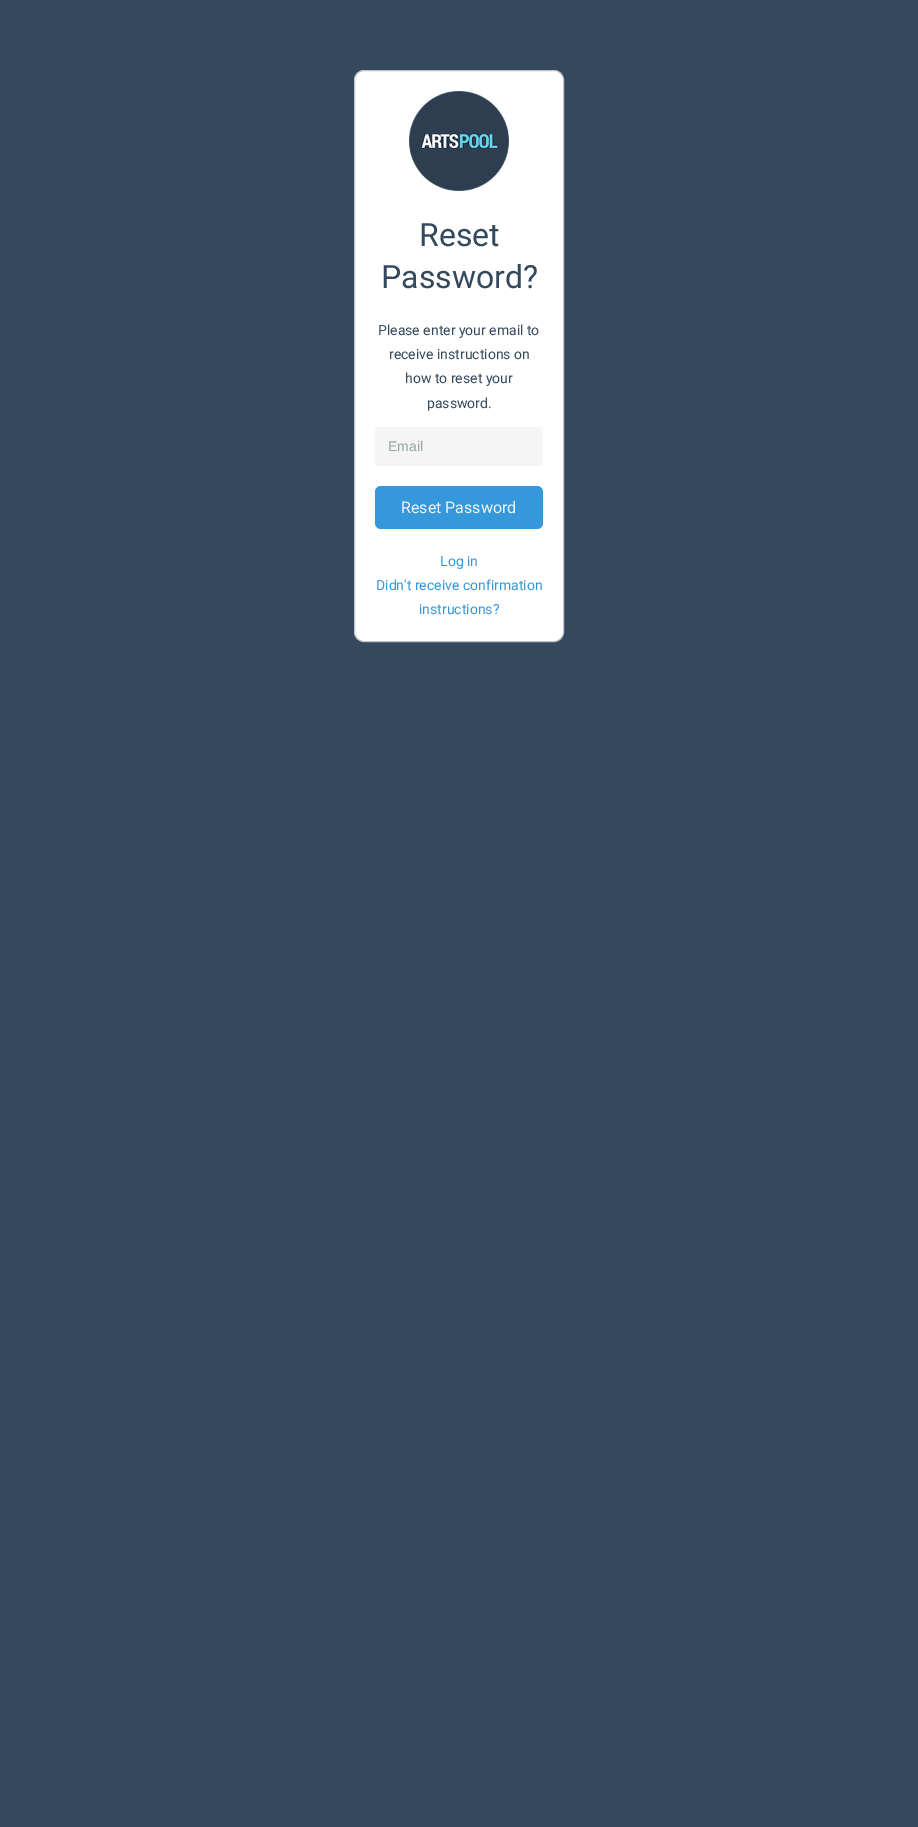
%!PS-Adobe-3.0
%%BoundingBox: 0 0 918 1827
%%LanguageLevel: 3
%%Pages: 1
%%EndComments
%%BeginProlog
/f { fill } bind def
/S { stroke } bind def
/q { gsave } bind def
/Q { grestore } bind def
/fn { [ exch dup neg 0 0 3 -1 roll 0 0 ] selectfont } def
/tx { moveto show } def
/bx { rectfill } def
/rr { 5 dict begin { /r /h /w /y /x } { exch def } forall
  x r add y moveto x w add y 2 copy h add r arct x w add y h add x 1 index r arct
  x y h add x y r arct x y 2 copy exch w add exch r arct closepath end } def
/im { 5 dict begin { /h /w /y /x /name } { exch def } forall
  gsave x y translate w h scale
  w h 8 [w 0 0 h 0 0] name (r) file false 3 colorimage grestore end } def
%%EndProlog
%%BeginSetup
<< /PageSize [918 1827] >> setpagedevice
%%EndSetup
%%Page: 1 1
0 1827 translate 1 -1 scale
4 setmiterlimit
0.204 0.286 0.369 setrgbcolor
0 0 918 1827 bx
1 setgray
354.5 70.5 209 571 9.5 rr q f Q
0.741 0.765 0.78 setrgbcolor
S
(image0.raw) 409 91 100 100 im
/Roboto-Regular 32 fn
0.204 0.286 0.369 setrgbcolor
(Reset) 419 246 tx
(Password?) 381 288 tx
/Roboto-Regular 14 fn
(Please enter your email to) 378 335 tx
(receive instructions on) 389 359 tx
(how to reset your) 405 383 tx
(password.) 427 408 tx
0.961 setgray
375 427 168 39 3 rr f
/LiberationSans-Regular 14 fn
0.584 0.647 0.651 setrgbcolor
(Email) 388 451 tx
0.204 0.596 0.859 setrgbcolor
375 486 168 43 6 rr f
/Roboto-Regular 16 fn
0.961 setgray
(Reset Password) 401 513 tx
/Roboto-Regular 14 fn
0.204 0.596 0.859 setrgbcolor
(Log in) 440 566 tx
(Didn't receive confirmation) 376 590 tx
(instructions?) 419 614 tx
showpage
%%EOF
